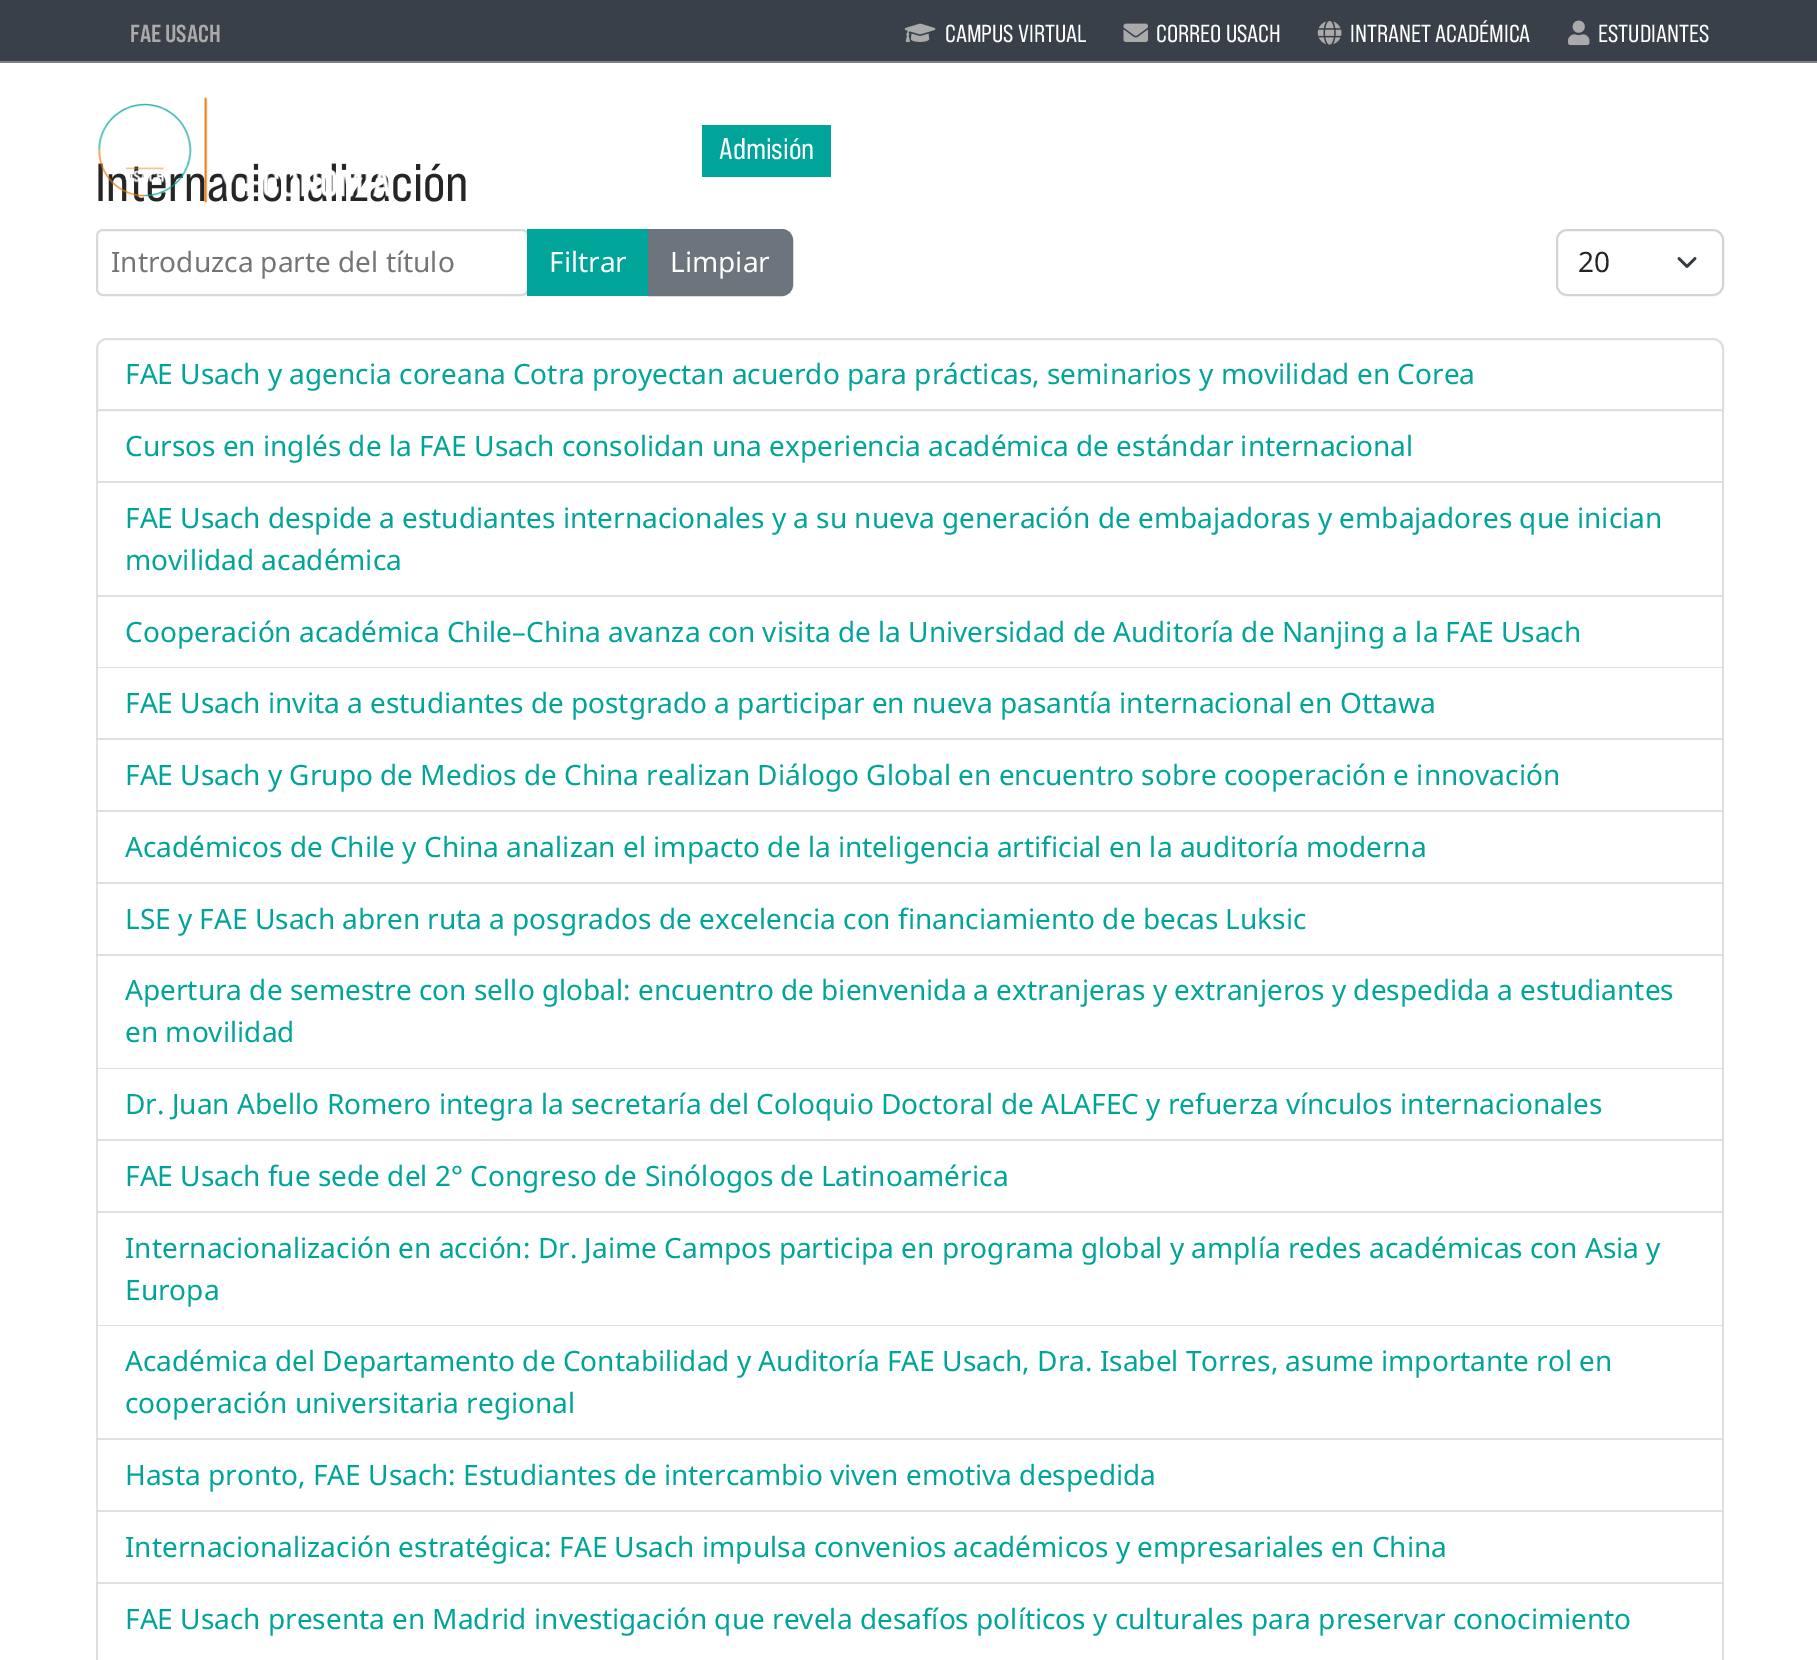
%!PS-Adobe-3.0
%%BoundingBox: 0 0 1817 1660
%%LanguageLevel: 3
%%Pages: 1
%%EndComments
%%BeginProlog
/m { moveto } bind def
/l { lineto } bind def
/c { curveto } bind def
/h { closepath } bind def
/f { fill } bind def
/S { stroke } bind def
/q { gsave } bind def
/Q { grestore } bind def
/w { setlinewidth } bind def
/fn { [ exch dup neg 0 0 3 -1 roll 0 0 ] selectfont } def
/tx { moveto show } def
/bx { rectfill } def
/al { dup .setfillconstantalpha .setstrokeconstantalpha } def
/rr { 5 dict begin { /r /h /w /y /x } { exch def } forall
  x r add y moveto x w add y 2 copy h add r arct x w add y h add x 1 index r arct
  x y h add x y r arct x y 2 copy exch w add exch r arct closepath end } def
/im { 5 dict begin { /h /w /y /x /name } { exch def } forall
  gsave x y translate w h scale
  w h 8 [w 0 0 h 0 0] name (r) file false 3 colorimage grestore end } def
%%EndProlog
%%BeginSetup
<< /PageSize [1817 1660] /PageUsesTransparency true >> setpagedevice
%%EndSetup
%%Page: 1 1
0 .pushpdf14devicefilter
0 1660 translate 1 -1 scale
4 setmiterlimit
1 setgray
0 0 1817 1660 bx
0.224 0.251 0.286 setrgbcolor
0 0 1817 61 bx
0.506 setgray
0 61 1817 2 bx
/BebasNeue-Bold 24.5 fn
0.667 setgray
(FAE USACH) 130 42 tx
(image0.raw) 904 23 32 19 im
/BebasNeue-Regular 24.5 fn
1 setgray
(CAMPUS VIRTUAL) 945 42 tx
(image1.raw) 1123 23 25 19 im
(CORREO USACH) 1156 42 tx
(image2.raw) 1317 21 25 24 im
(INTRANET ACADÉMICA) 1350 42 tx
(image3.raw) 1568 20 22 26 im
(ESTUDIANTES) 1598 42 tx
/BebasNeue-Regular 53.5 fn
0.145 setgray
(Internacionalización) 95 201 tx
(image4.raw) 98 97 291 107 im
0 0.643 0.6 setrgbcolor
702 125 129 52 bx
/BebasNeue-Regular 30 fn
1 setgray
(Admisión) 719 159 tx
0.851 setgray
2 w
97 230 431 65 6 rr S
/NotoSans-Regular 28 fn
0.459 setgray
(Introduzca parte del título) 111 272 tx
0 0.643 0.6 setrgbcolor
527 229 121 67 bx
1 setgray
(Filtrar) 549 272 tx
0.424 0.459 0.49 setrgbcolor
649 230 m 782 230 l 787.5 230 792 234.5 792 240 c 792 285 l 792 290.5 787.5 295 782 295 c 649 295 l h q f Q
S
1 setgray
(Limpiar) 670 272 tx
0.204 0.227 0.251 setrgbcolor
2.6 w
1 setlinecap
1 setlinejoin
1679 258.5 m 1687 266.5 l 1695 258.5 l S
0.808 0.831 0.855 setrgbcolor
2 w
0 setlinecap
0 setlinejoin
1557 230 166 65 10 rr S
0.145 setgray
(20) 1578 272 tx
0.875 setgray
107 339 m 1713 339 l 1718.5 339 1723 343.5 1723 349 c 1723 410 l 97 410 l 97 349 l 97 343.5 101.5 339 107 339 c h S
0 0.643 0.6 setrgbcolor
(FAE Usach y agencia coreana Cotra proyectan acuerdo para prácticas, seminarios y movilidad en Corea) 125 384 tx
0.875 setgray
1724 411 m 1724 483 l 1722 481 l 1722 411 l h f
0.12 al
0 setgray
1724 483 m 96 483 l 98 481 l 1722 481 l h f
96 483 m 96 411 l 98 411 l 98 481 l h f
1 al
0 0.643 0.6 setrgbcolor
(Cursos en inglés de la FAE Usach consolidan una experiencia académica de estándar internacional) 125 456 tx
0.875 setgray
1724 483 m 1724 597 l 1722 595 l 1722 483 l h f
0.12 al
0 setgray
1724 597 m 96 597 l 98 595 l 1722 595 l h f
96 597 m 96 483 l 98 483 l 98 595 l h f
1 al
0 0.643 0.6 setrgbcolor
(FAE Usach despide a estudiantes internacionales y a su nueva generación de embajadoras y embajadores que inician) 125 528 tx
(movilidad académica) 125 570 tx
0.875 setgray
1724 597 m 1724 668 l 1722 667 l 1722 597 l h f
0.12 al
0 setgray
1724 668 m 96 668 l 98 667 l 1722 667 l h f
96 668 m 96 597 l 98 597 l 98 667 l h f
1 al
0 0.643 0.6 setrgbcolor
(Cooperación académica Chile–China avanza con visita de la Universidad de Auditoría de Nanjing a la FAE Usach) 125 642 tx
0.875 setgray
1724 668 m 1724 740 l 1722 738 l 1722 668 l h f
0.12 al
0 setgray
1724 740 m 96 740 l 98 738 l 1722 738 l h f
96 740 m 96 668 l 98 668 l 98 738 l h f
1 al
0 0.643 0.6 setrgbcolor
(FAE Usach invita a estudiantes de postgrado a participar en nueva pasantía internacional en Ottawa) 125 713 tx
0.875 setgray
1724 740 m 1724 812 l 1722 810 l 1722 740 l h f
0.12 al
0 setgray
1724 812 m 96 812 l 98 810 l 1722 810 l h f
96 812 m 96 740 l 98 740 l 98 810 l h f
1 al
0 0.643 0.6 setrgbcolor
(FAE Usach y Grupo de Medios de China realizan Diálogo Global en encuentro sobre cooperación e innovación) 125 785 tx
0.875 setgray
1724 812 m 1724 884 l 1722 882 l 1722 812 l h f
0.12 al
0 setgray
1724 884 m 96 884 l 98 882 l 1722 882 l h f
96 884 m 96 812 l 98 812 l 98 882 l h f
1 al
0 0.643 0.6 setrgbcolor
(Académicos de Chile y China analizan el impacto de la inteligencia artificial en la auditoría moderna) 125 857 tx
0.875 setgray
1724 884 m 1724 956 l 1722 954 l 1722 884 l h f
0.12 al
0 setgray
1724 956 m 96 956 l 98 954 l 1722 954 l h f
96 956 m 96 884 l 98 884 l 98 954 l h f
1 al
0 0.643 0.6 setrgbcolor
(LSE y FAE Usach abren ruta a posgrados de excelencia con financiamiento de becas Luksic) 125 929 tx
0.875 setgray
1724 956 m 1724 1069 l 1722 1068 l 1722 956 l h f
0.12 al
0 setgray
1724 1069 m 96 1069 l 98 1068 l 1722 1068 l h f
96 1069 m 96 956 l 98 956 l 98 1068 l h f
1 al
0 0.643 0.6 setrgbcolor
(Apertura de semestre con sello global: encuentro de bienvenida a extranjeras y extranjeros y despedida a estudiantes) 125 1000 tx
(en movilidad) 125 1042 tx
0.875 setgray
1724 1069 m 1724 1141 l 1722 1139 l 1722 1069 l h f
0.12 al
0 setgray
1724 1141 m 96 1141 l 98 1139 l 1722 1139 l h f
96 1141 m 96 1069 l 98 1069 l 98 1139 l h f
1 al
0 0.643 0.6 setrgbcolor
(Dr. Juan Abello Romero integra la secretaría del Coloquio Doctoral de ALAFEC y refuerza vínculos internacionales) 125 1114 tx
0.875 setgray
1724 1141 m 1724 1213 l 1722 1211 l 1722 1141 l h f
0.12 al
0 setgray
1724 1213 m 96 1213 l 98 1211 l 1722 1211 l h f
96 1213 m 96 1141 l 98 1141 l 98 1211 l h f
1 al
0 0.643 0.6 setrgbcolor
(FAE Usach fue sede del 2° Congreso de Sinólogos de Latinoamérica) 125 1186 tx
0.875 setgray
1724 1213 m 1724 1326 l 1722 1325 l 1722 1213 l h f
0.12 al
0 setgray
1724 1326 m 96 1326 l 98 1325 l 1722 1325 l h f
96 1326 m 96 1213 l 98 1213 l 98 1325 l h f
1 al
0 0.643 0.6 setrgbcolor
(Internacionalización en acción: Dr. Jaime Campos participa en programa global y amplía redes académicas con Asia y) 125 1258 tx
(Europa) 125 1300 tx
0.875 setgray
1724 1326 m 1724 1440 l 1722 1438 l 1722 1326 l h f
0.12 al
0 setgray
1724 1440 m 96 1440 l 98 1438 l 1722 1438 l h f
96 1440 m 96 1326 l 98 1326 l 98 1438 l h f
1 al
0 0.643 0.6 setrgbcolor
(Académica del Departamento de Contabilidad y Auditoría FAE Usach, Dra. Isabel Torres, asume importante rol en) 125 1371 tx
(cooperación universitaria regional) 125 1413 tx
0.875 setgray
1724 1440 m 1724 1512 l 1722 1510 l 1722 1440 l h f
0.12 al
0 setgray
1724 1512 m 96 1512 l 98 1510 l 1722 1510 l h f
96 1512 m 96 1440 l 98 1440 l 98 1510 l h f
1 al
0 0.643 0.6 setrgbcolor
(Hasta pronto, FAE Usach: Estudiantes de intercambio viven emotiva despedida) 125 1485 tx
0.875 setgray
1724 1512 m 1724 1584 l 1722 1582 l 1722 1512 l h f
0.12 al
0 setgray
1724 1584 m 96 1584 l 98 1582 l 1722 1582 l h f
96 1584 m 96 1512 l 98 1512 l 98 1582 l h f
1 al
0 0.643 0.6 setrgbcolor
(Internacionalización estratégica: FAE Usach impulsa convenios académicos y empresariales en China) 125 1557 tx
0.875 setgray
1724 1584 m 1724 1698 l 1722 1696 l 1722 1584 l h f
96 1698 m 96 1584 l 98 1584 l 98 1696 l h f
0 0.643 0.6 setrgbcolor
(FAE Usach presenta en Madrid investigación que revela desafíos políticos y culturales para preservar conocimiento) 125 1629 tx
.poppdf14devicefilter showpage
%%EOF
